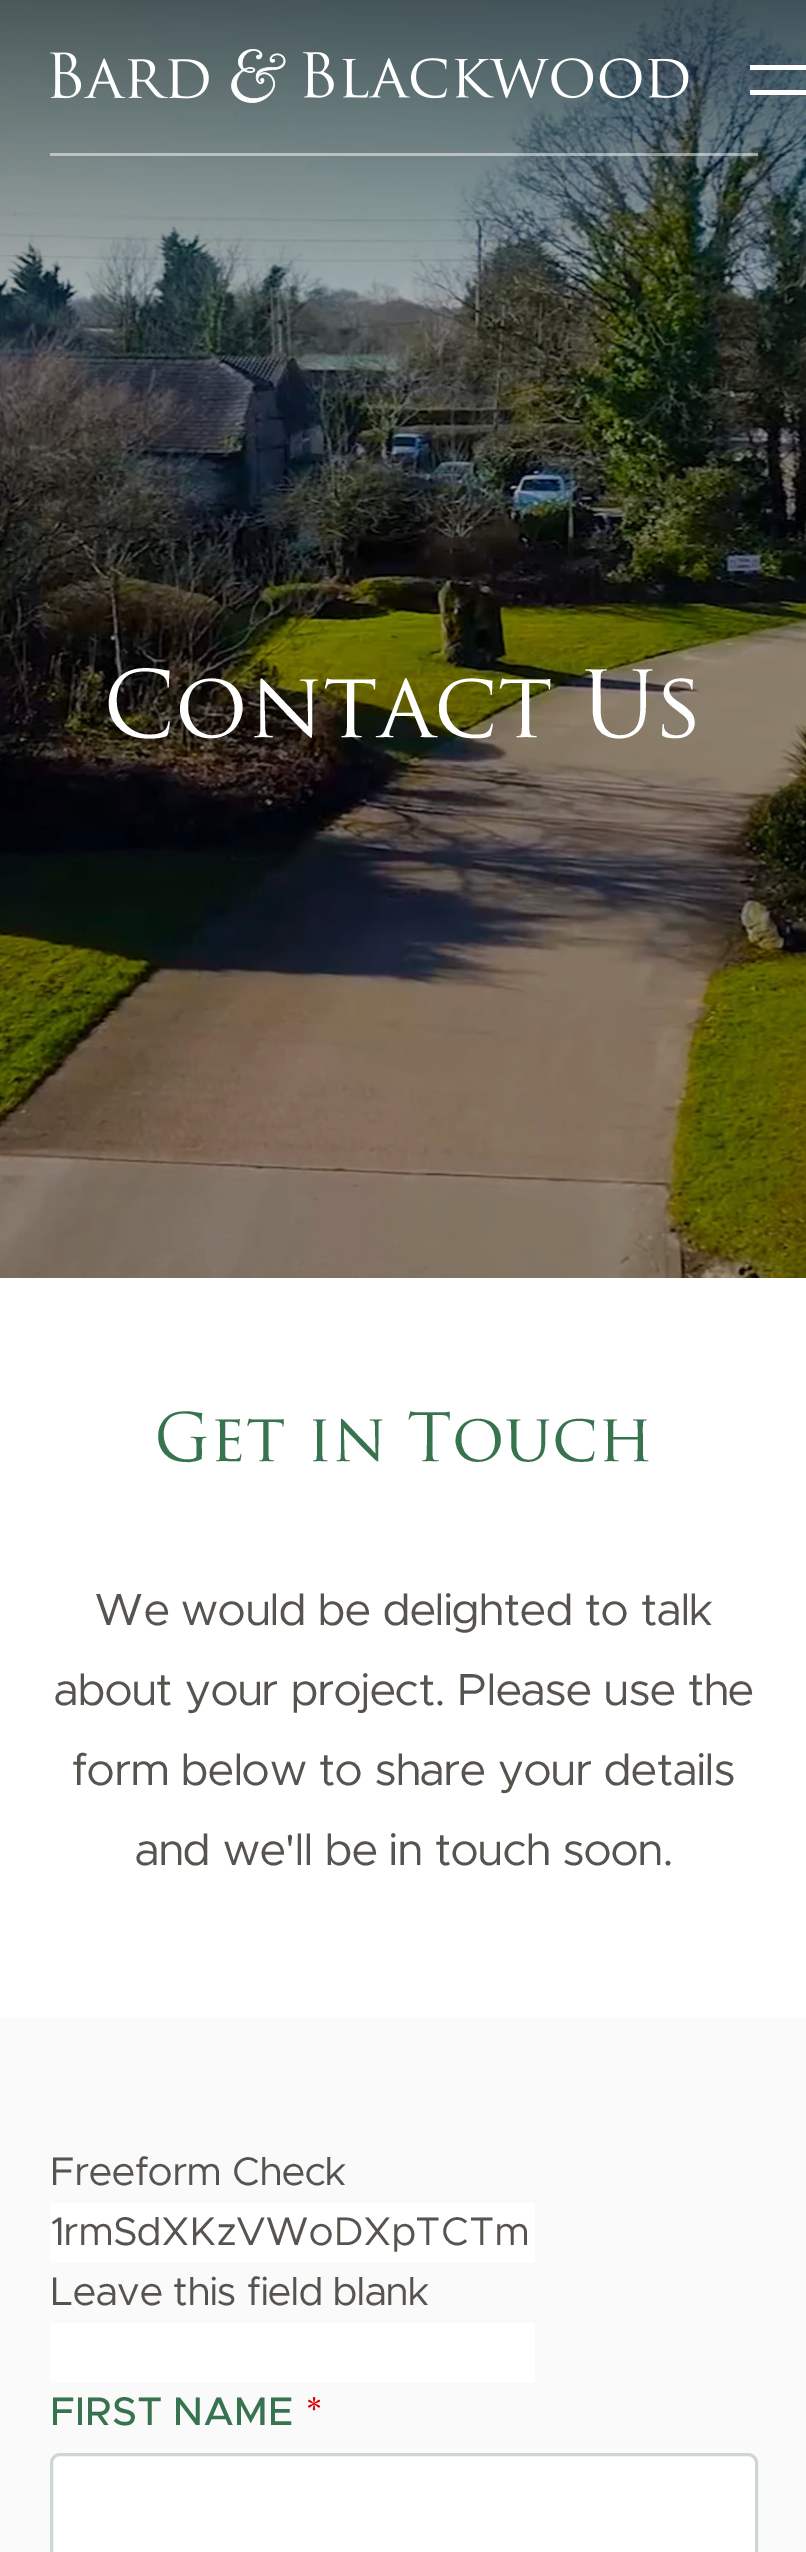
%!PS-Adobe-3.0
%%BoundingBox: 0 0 806 2552
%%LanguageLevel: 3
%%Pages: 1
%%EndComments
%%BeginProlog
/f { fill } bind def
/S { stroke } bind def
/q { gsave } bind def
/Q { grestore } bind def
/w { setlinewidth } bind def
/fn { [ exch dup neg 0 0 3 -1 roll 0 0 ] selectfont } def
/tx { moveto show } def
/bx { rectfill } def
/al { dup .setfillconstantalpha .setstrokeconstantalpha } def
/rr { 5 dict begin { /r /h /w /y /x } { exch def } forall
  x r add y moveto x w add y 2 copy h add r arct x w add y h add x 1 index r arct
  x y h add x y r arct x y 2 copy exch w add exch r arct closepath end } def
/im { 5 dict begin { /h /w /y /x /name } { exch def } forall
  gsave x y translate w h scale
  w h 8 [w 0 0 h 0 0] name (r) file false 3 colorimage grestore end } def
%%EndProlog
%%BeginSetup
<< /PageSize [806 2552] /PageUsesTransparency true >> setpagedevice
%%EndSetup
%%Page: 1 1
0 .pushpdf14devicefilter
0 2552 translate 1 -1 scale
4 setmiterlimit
0.98 setgray
0 0 806 2552 bx
(image1.raw) 0 0 806 1278 im
0.5 al
1 setgray
50 153 708 3 bx
1 al
(image0.raw) 50 49 639 54 im
750 65 56 5 bx
750 90 56 5 bx
/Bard-Regular 90 fn
(Contact Us) 103 737 tx
0 1278 806 740 bx
/Bard-Regular 65 fn
0.216 0.451 0.31 setrgbcolor
(Get in Touch) 154 1461 tx
/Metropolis-Regular 45 fn
0.341 0.325 0.306 setrgbcolor
(We would be delighted to talk) 94 1625 tx
(about your project. Please use the) 54 1705 tx
(form below to share your details) 72 1785 tx
(and we'll be in touch soon.) 135 1865 tx
/Metropolis-Regular 40 fn
(Freeform Check) 50 2185 tx
1 setgray
50 2203 485 60 bx
0.341 0.325 0.306 setrgbcolor
(1rmSdXKzVWoDXpTCTm) 50 2245 tx
(Leave this field blank) 50 2305 tx
1 setgray
50 2323 485 60 bx
/Metropolis-Medium 40 fn
0.216 0.451 0.31 setrgbcolor
(FIRST NAME) 50 2425 tx
0.867 0 0 setrgbcolor
(*) 306 2425 tx
1 setgray
51.5 2454.5 705 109 8.5 rr q f Q
0.808 0.843 0.808 setrgbcolor
3 w
S
.poppdf14devicefilter showpage
%%EOF
